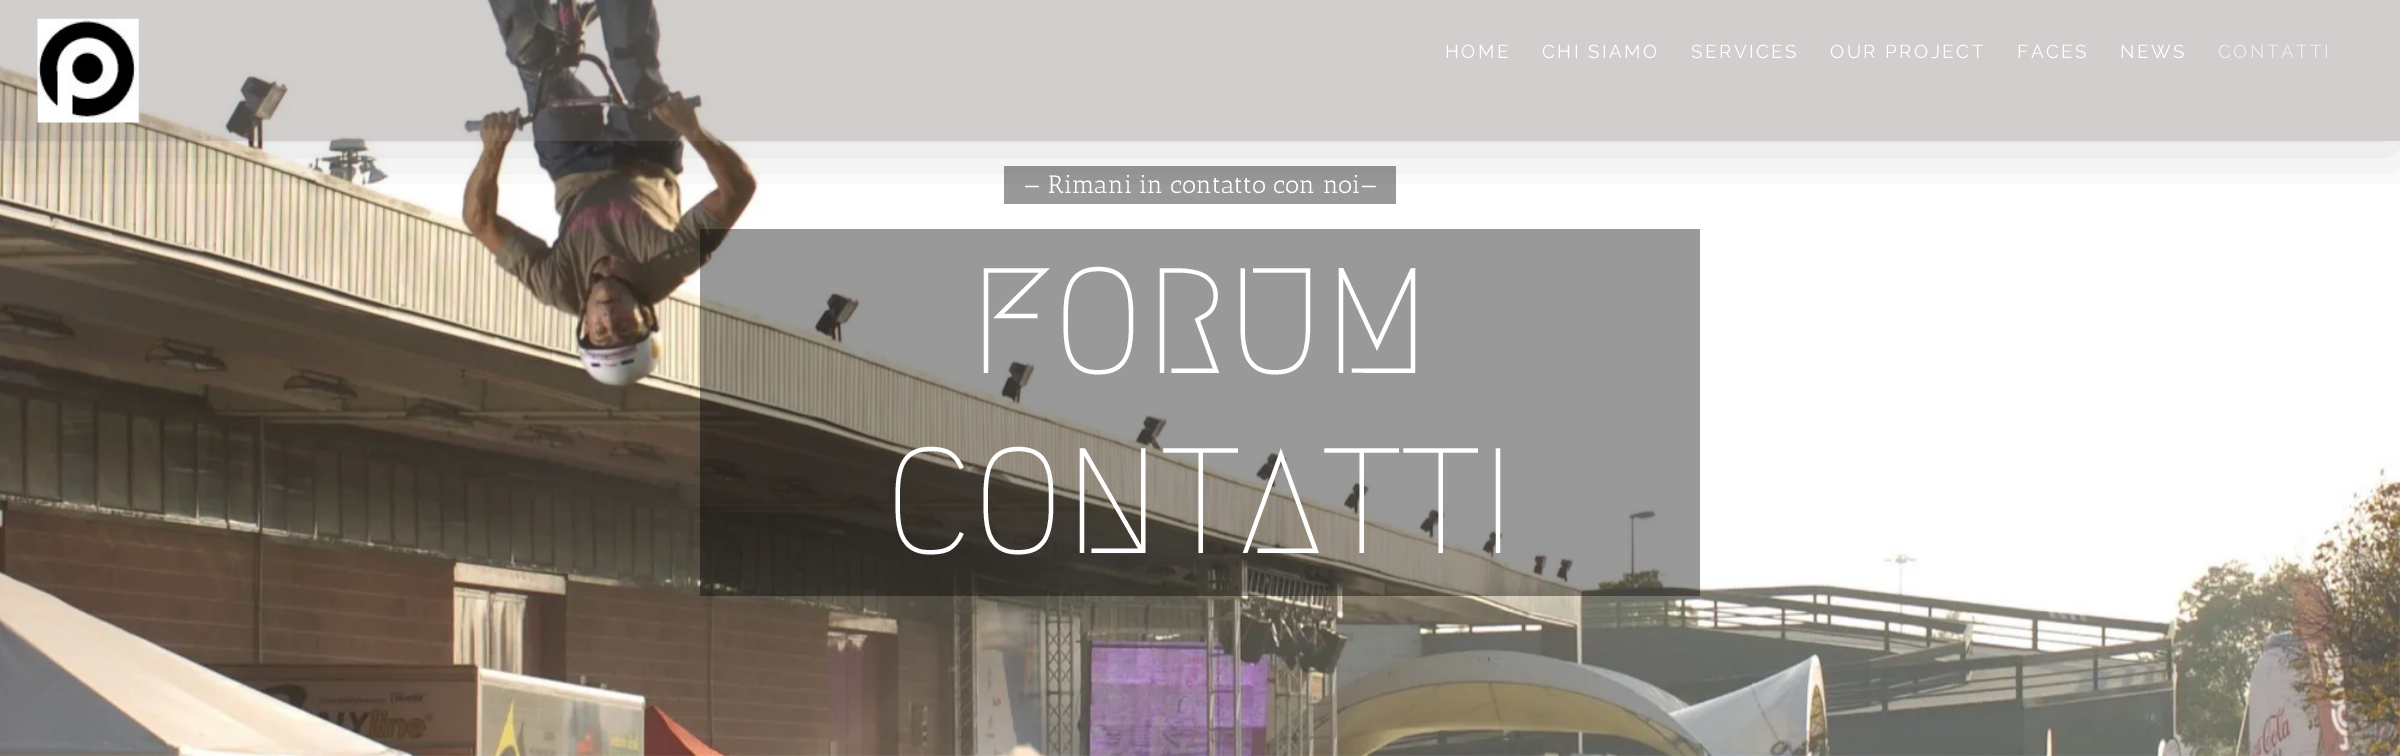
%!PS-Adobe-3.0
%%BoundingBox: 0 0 2400 756
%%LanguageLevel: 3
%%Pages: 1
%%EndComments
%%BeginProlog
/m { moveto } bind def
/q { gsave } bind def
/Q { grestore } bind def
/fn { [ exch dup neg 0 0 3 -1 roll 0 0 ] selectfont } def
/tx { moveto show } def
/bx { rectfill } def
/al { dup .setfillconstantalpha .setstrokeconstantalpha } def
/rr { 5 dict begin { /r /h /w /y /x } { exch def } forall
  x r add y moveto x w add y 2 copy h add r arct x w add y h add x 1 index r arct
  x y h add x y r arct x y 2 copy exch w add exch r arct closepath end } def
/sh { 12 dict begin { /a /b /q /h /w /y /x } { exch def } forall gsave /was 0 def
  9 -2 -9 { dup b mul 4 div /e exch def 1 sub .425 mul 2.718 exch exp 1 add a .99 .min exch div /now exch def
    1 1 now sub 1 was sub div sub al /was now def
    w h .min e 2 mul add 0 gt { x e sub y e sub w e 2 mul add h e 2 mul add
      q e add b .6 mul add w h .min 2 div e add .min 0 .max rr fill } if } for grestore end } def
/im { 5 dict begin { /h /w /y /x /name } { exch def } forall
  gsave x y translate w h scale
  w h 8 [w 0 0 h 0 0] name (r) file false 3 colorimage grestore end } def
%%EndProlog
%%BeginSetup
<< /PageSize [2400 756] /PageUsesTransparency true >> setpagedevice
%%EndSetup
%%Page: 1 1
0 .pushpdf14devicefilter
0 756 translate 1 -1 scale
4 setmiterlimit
1 setgray
0 0 2400 756 bx
(image1.raw) 0 0 2400 756 im
0.6 setgray
1004 166 392 38 bx
0.4 al
0 setgray
700 229 1000 367 bx
q
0 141 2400 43 rectclip
1 al
3 15 2395 136 0 31 0.14 sh
Q
0.32 al
0.439 0.404 0.384 setrgbcolor
0 0 2400 141 bx
1 al
(image0.raw) 37 18 102 105 im
/Raleway-Regular 18.75 fn
1 setgray
1445 58 m 2.5 0 (HOME) ashow
1542 58 m 2.5 0 (CHI SIAMO) ashow
1691 58 m 2.5 0 (SERVICES) ashow
1830 58 m 2.5 0 (OUR PROJECT) ashow
2017 58 m 2.5 0 (FACES) ashow
2120 58 m 2.5 0 (NEWS) ashow
0.929 setgray
2218 58 m 2.5 0 (CONTATTI) ashow
/AnticSlab-Regular 25 fn
1 setgray
(— Rimani in contatto con noi—) 1023 193 tx
/Megrim-Medium 150 fn
(FORUM) 969 373 tx
(CONTATTI) 884 553 tx
.poppdf14devicefilter showpage
%%EOF
